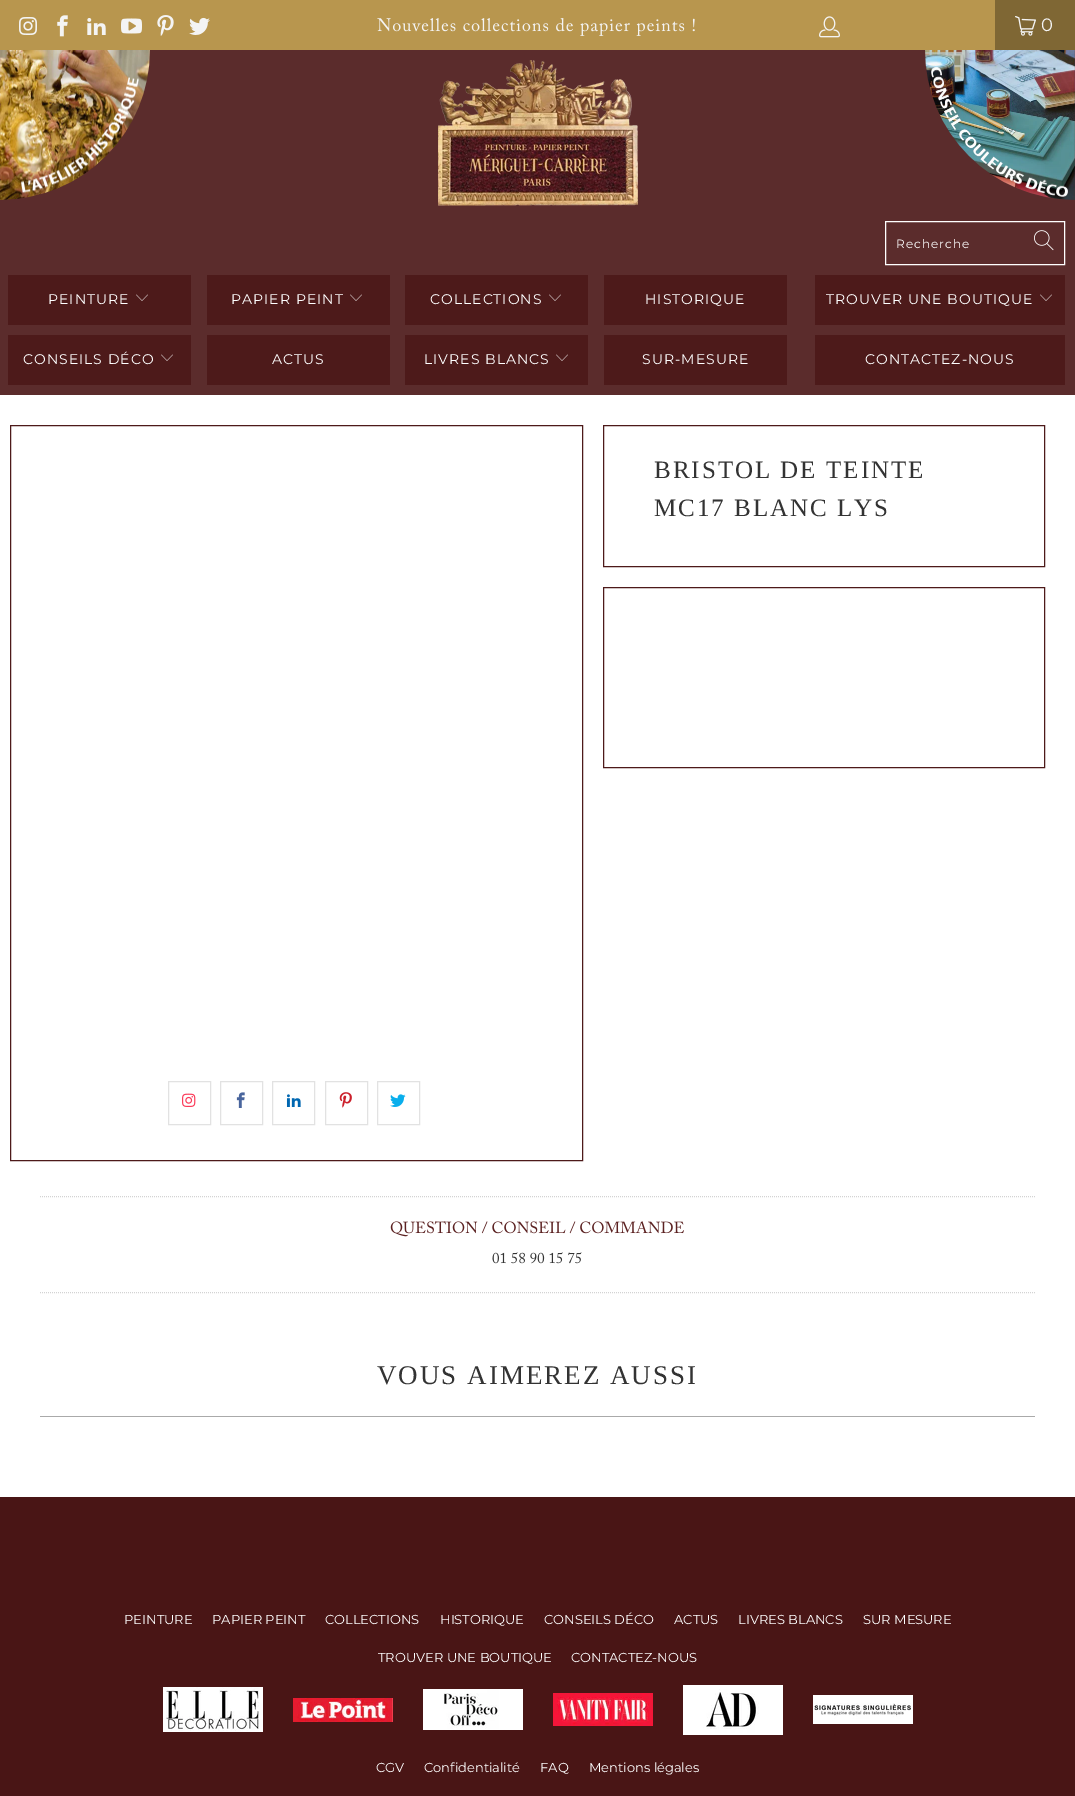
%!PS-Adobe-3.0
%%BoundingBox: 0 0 1075 1796
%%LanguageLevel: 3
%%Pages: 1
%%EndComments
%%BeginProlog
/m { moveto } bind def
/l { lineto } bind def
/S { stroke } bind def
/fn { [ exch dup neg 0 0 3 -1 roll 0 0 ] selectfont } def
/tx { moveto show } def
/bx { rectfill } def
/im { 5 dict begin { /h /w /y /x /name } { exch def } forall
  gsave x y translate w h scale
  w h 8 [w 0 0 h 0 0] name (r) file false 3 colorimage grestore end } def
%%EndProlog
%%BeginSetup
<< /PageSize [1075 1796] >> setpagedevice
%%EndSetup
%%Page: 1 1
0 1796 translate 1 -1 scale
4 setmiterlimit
1 setgray
0 0 1075 1796 bx
0.722 0.588 0.306 setrgbcolor
0 0 995 50 bx
(image0.raw) 19 17 18 18 im
(image1.raw) 57 15 11 22 im
(image2.raw) 87 18 19 17 im
(image3.raw) 121 18 21 16 im
(image4.raw) 157 15 17 21 im
(image5.raw) 189 17 21 18 im
(image6.raw) 377 18 318 18 im
(image7.raw) 819 16 21 22 im
0.498 0.404 0.204 setrgbcolor
995 0 80 50 bx
(image8.raw) 1015 16 21 20 im
/Montserrat-Regular 18 fn
0.957 setgray
1041 31 m 1 0 (0) ashow
0.357 0.173 0.173 setrgbcolor
0 50 1075 345 bx
(image9.raw) 0 50 150 150 im
(image10.raw) 438 60 200 146 im
(image11.raw) 925 50 150 150 im
1 setgray
885.5 221.5 179 43 rectstroke
/Montserrat-Regular 12 fn
896 248 m 1 0 (Recherche) ashow
(image12.raw) 1034 230 20 21 im
0.302 0.102 0.102 setrgbcolor
8 275 183 50 bx
/Montserrat-Regular 14 fn
1 setgray
48 304 m 1 0 (PEINTURE) ashow
(image13.raw) 136 294 12 7 im
0.302 0.102 0.102 setrgbcolor
207 275 183 50 bx
1 setgray
231 304 m 1 0 (PAPIER PEINT) ashow
(image13.raw) 350 294 12 7 im
0.302 0.102 0.102 setrgbcolor
405 275 183 50 bx
1 setgray
430 304 m 1 0 (COLLECTIONS) ashow
(image13.raw) 549 294 12 7 im
0.302 0.102 0.102 setrgbcolor
604 275 183 50 bx
1 setgray
645 304 m 1 0 (HISTORIQUE) ashow
0.302 0.102 0.102 setrgbcolor
8 335 183 50 bx
1 setgray
23 364 m 1 0 (CONSEILS DÉCO) ashow
(image13.raw) 161 354 12 7 im
0.302 0.102 0.102 setrgbcolor
207 335 183 50 bx
1 setgray
272 364 m 1 0 (ACTUS) ashow
0.302 0.102 0.102 setrgbcolor
405 335 183 50 bx
1 setgray
424 364 m 1 0 (LIVRES BLANCS) ashow
(image13.raw) 556 354 12 7 im
0.302 0.102 0.102 setrgbcolor
604 335 183 50 bx
1 setgray
642 364 m 1 0 (SUR-MESURE) ashow
0.302 0.102 0.102 setrgbcolor
815 275 250 50 bx
1 setgray
826 304 m 1 0 (TROUVER UNE BOUTIQUE) ashow
(image13.raw) 1040 294 12 7 im
0.302 0.102 0.102 setrgbcolor
815 335 250 50 bx
1 setgray
865 364 m 1 0 (CONTACTEZ-NOUS) ashow
0.302 0.102 0.102 setrgbcolor
10.5 425.5 572 735 rectstroke
0.886 setgray
168.5 1081.5 42 43 rectstroke
(image14.raw) 182 1093 14 14 im
220.5 1081.5 42 43 rectstroke
(image15.raw) 236 1092 9 16 im
272.5 1081.5 42 43 rectstroke
(image16.raw) 286 1094 15 13 im
325.5 1081.5 42 43 rectstroke
(image17.raw) 339 1092 13 16 im
377.5 1081.5 42 43 rectstroke
(image18.raw) 390 1094 16 13 im
0.302 0.102 0.102 setrgbcolor
603.5 425.5 441 141 rectstroke
/LiberationSerif-Regular 25 fn
0.2 setgray
654 478 m 2 0 (BRISTOL DE TEINTE) ashow
654 516 m 2 0 (MC17 BLANC LYS) ashow
0.302 0.102 0.102 setrgbcolor
603.5 587.5 441 180 rectstroke
0.827 setgray
[1 1] 0 setdash
40 1196.5 m 1035 1196.5 l S
40 1292.5 m 1035 1292.5 l S
(image19.raw) 390 1221 294 16 im
(image20.raw) 492 1252 90 12 im
/LiberationSerif-Regular 27 fn
0.2 setgray
377 1384 m 2 0 (VOUS AIMEREZ AUSSI) ashow
0.667 setgray
40 1416 995 1 bx
0.286 0.082 0.082 setrgbcolor
0 1497 1075 299 bx
/Montserrat-Regular 13 fn
1 setgray
(PEINTURE) 124 1624 tx
(PAPIER PEINT) 212 1624 tx
(COLLECTIONS) 325 1624 tx
(HISTORIQUE) 440 1624 tx
(CONSEILS DÉCO) 544 1624 tx
(ACTUS) 674 1624 tx
(LIVRES BLANCS) 738 1624 tx
(SUR MESURE) 863 1624 tx
(TROUVER UNE BOUTIQUE) 378 1662 tx
(CONTACTEZ-NOUS) 571 1662 tx
(image21.raw) 163 1687 100 45 im
(image22.raw) 293 1698 100 24 im
(image23.raw) 423 1689 100 41 im
(image24.raw) 553 1693 100 33 im
(image25.raw) 683 1685 100 50 im
(image26.raw) 813 1695 100 29 im
(CGV) 376 1772 tx
(Confidentialité) 424 1772 tx
(FAQ) 540 1772 tx
(Mentions légales) 589 1772 tx
showpage
%%EOF
